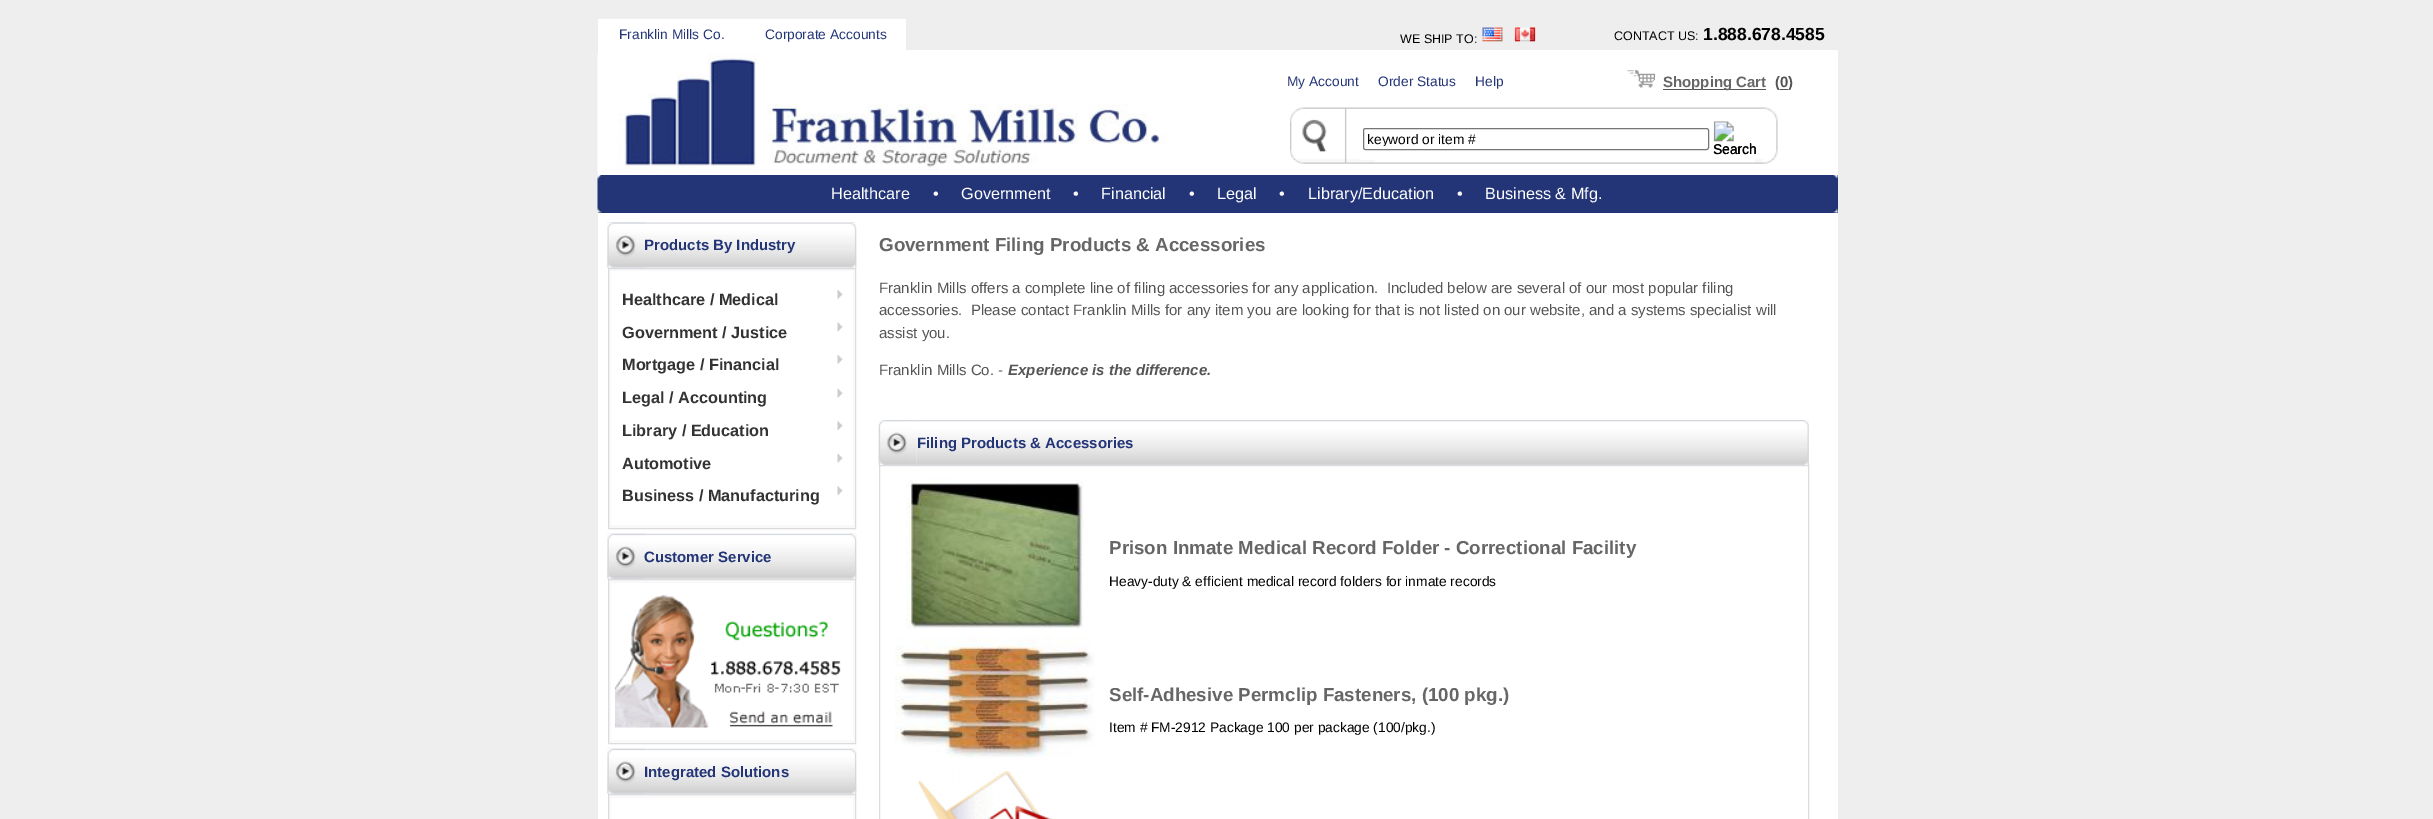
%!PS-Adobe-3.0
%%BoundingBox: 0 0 2433 819
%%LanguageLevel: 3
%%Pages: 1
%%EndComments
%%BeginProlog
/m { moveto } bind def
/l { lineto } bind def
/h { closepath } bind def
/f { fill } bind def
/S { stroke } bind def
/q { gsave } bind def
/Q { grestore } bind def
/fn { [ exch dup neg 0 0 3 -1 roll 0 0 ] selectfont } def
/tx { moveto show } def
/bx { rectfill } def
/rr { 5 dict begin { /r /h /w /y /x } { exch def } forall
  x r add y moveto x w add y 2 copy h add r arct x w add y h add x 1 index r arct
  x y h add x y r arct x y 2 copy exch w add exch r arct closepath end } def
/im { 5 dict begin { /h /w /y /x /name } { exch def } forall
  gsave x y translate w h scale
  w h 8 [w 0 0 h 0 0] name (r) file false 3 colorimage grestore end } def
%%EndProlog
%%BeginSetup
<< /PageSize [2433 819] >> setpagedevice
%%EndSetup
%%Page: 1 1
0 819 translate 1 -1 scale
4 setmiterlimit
0.933 setgray
0 0 2433 819 bx
1 setgray
598 19 308 31 bx
/LiberationSans-Regular 13.75 fn
0.137 0.208 0.467 setrgbcolor
(Franklin Mills Co.) 619 39 tx
(Corporate Accounts) 765 39 tx
/LiberationSans-Regular 12.5 fn
0 setgray
(WE SHIP TO:) 1400 43 tx
(image0.raw) 1482 27 54 15 im
(CONTACT US:) 1614 40 tx
/LiberationSans-Bold 17.5 fn
(1.888.678.4585) 1703 40 tx
1 setgray
598 50 1240 125 bx
(image1.raw) 597 54 570 119 im
/LiberationSans-Regular 13.75 fn
0.137 0.208 0.467 setrgbcolor
(My Account) 1287 86 tx
(Order Status) 1378 86 tx
(Help) 1475 86 tx
(image2.raw) 1627 70 28 18 im
0.333 setgray
1663 89 103 1 bx
/LiberationSans-Bold 15 fn
0.4 setgray
(Shopping Cart) 1663 87 tx
0.333 setgray
(\(0) 1775 87 tx
1780 89 8 1 bx
(\)) 1788 87 tx
(image3.raw) 1290 107 488 57 im
0.463 setgray
1363.5 128.5 345 21 2 rr S
q
1368 131 336 15 rectclip
/LiberationSans-Regular 13.75 fn
0 setgray
(keyword or item #) 1367 144 tx
Q
(image4.raw) 1713 121 43 33 im
/LiberationSans-Regular 13.75 fn
0 setgray
(Search) 1713 154 tx
0.137 0.208 0.467 setrgbcolor
598 175 1240 38 bx
(image5.raw) 597 175 8 38 im
/LiberationSans-Regular 16.25 fn
1 setgray
(Healthcare) 831 199 tx
0.976 setgray
(•) 933 199 tx
1 setgray
(Government) 961 199 tx
0.976 setgray
(•) 1073 199 tx
1 setgray
(Financial) 1101 199 tx
0.976 setgray
(•) 1189 199 tx
1 setgray
(Legal) 1217 199 tx
0.976 setgray
(•) 1279 199 tx
1 setgray
(Library/Education) 1308 199 tx
0.976 setgray
(•) 1457 199 tx
1 setgray
(Business & Mfg.) 1485 199 tx
(image6.raw) 1833 175 5 38 im
598 213 1240 606 bx
(image7.raw) 607 222 38 46 im
(image8.raw) 607 222 38 46 im
0.976 setgray
645 267 205 1 bx
(image9.raw) 645 222 205 46 im
/LiberationSans-Bold 15 fn
0.137 0.208 0.467 setrgbcolor
(Products By Industry) 644 250 tx
(image10.raw) 850 222 7 46 im
(image11.raw) 850 222 7 46 im
0.976 setgray
608.5 268.5 m 855.5 268.5 l 855.5 528.5 l 608.5 528.5 l h q f Q
0.859 0.863 0.859 setrgbcolor
S
1 setgray
611 271 242 254 bx
/LiberationSans-Bold 16.25 fn
0.2 setgray
(Healthcare / Medical) 622 305 tx
(image12.raw) 837 290 6 9 im
(Government / Justice) 622 338 tx
(image13.raw) 837 322 6 10 im
(Mortgage / Financial) 622 370 tx
(image14.raw) 837 355 6 9 im
(Legal / Accounting) 622 403 tx
(image15.raw) 837 388 6 10 im
(Library / Education) 622 436 tx
(image16.raw) 837 421 6 9 im
(Automotive) 622 469 tx
(image15.raw) 837 453 6 10 im
(Business / Manufacturing) 622 501 tx
(image16.raw) 837 486 6 9 im
(image17.raw) 607 533 38 46 im
(image18.raw) 607 533 38 46 im
(image19.raw) 645 533 205 46 im
/LiberationSans-Bold 15 fn
0.137 0.208 0.467 setrgbcolor
(Customer Service) 644 562 tx
(image20.raw) 850 533 7 46 im
(image21.raw) 850 533 7 46 im
0.976 setgray
608.5 579.5 m 855.5 579.5 l 855.5 743.5 l 608.5 743.5 l h q f Q
0.859 0.863 0.859 setrgbcolor
S
1 setgray
611 583 242 157 bx
(image22.raw) 615 595 226 133 im
(image23.raw) 607 748 38 46 im
(image18.raw) 607 748 38 46 im
(image24.raw) 645 748 205 46 im
0.137 0.208 0.467 setrgbcolor
(Integrated Solutions) 644 777 tx
(image25.raw) 850 748 7 46 im
(image21.raw) 850 748 7 46 im
0.976 setgray
608.5 794.5 m 855.5 794.5 l 855.5 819.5 l 608.5 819.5 l h q f Q
0.859 0.863 0.859 setrgbcolor
S
1 setgray
611 798 242 21 bx
/LiberationSans-Bold 18.75 fn
0.4 setgray
(Government Filing Products & Accessories) 879 251 tx
/LiberationSans-Regular 15 fn
0.333 setgray
(Franklin Mills offers a complete line of filing accessories for any application.  Included below are several of our most popular filing) 879 293 tx
(accessories.  Please contact Franklin Mills for any item you are looking for that is not listed on our website, and a systems specialist will) 879 315 tx
(assist you.) 879 338 tx
(Franklin Mills Co. -) 879 375 tx
/LiberationSans-BoldItalic 15 fn
(Experience is the difference.) 1008 375 tx
(image26.raw) 878 420 39 45 im
(image27.raw) 878 420 29 45 im
(image28.raw) 916 420 644 45 im
/LiberationSans-Bold 15 fn
0.137 0.208 0.467 setrgbcolor
(Filing Products & Accessories) 917 448 tx
(image29.raw) 1560 420 230 45 im
(image30.raw) 1790 420 19 45 im
(image31.raw) 1804 420 5 45 im
0.859 0.863 0.859 setrgbcolor
879.5 465.5 929 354 rectstroke
(image32.raw) 906 479 178 150 im
/LiberationSans-Bold 18.75 fn
0.4 setgray
(Prison Inmate Medical Record Folder - Correctional Facility) 1109 554 tx
/LiberationSans-Regular 13.75 fn
0 setgray
(Heavy-duty & efficient medical record folders for inmate records) 1109 586 tx
(image33.raw) 895 636 200 122 im
/LiberationSans-Bold 18.75 fn
0.4 setgray
(Self-Adhesive Permclip Fasteners, \(100 pkg.\)) 1109 701 tx
/LiberationSans-Regular 13.75 fn
0 setgray
(Item # FM-2912 Package 100 per package \(100/pkg.\)) 1109 732 tx
(image34.raw) 918 771 135 48 im
showpage
%%EOF
